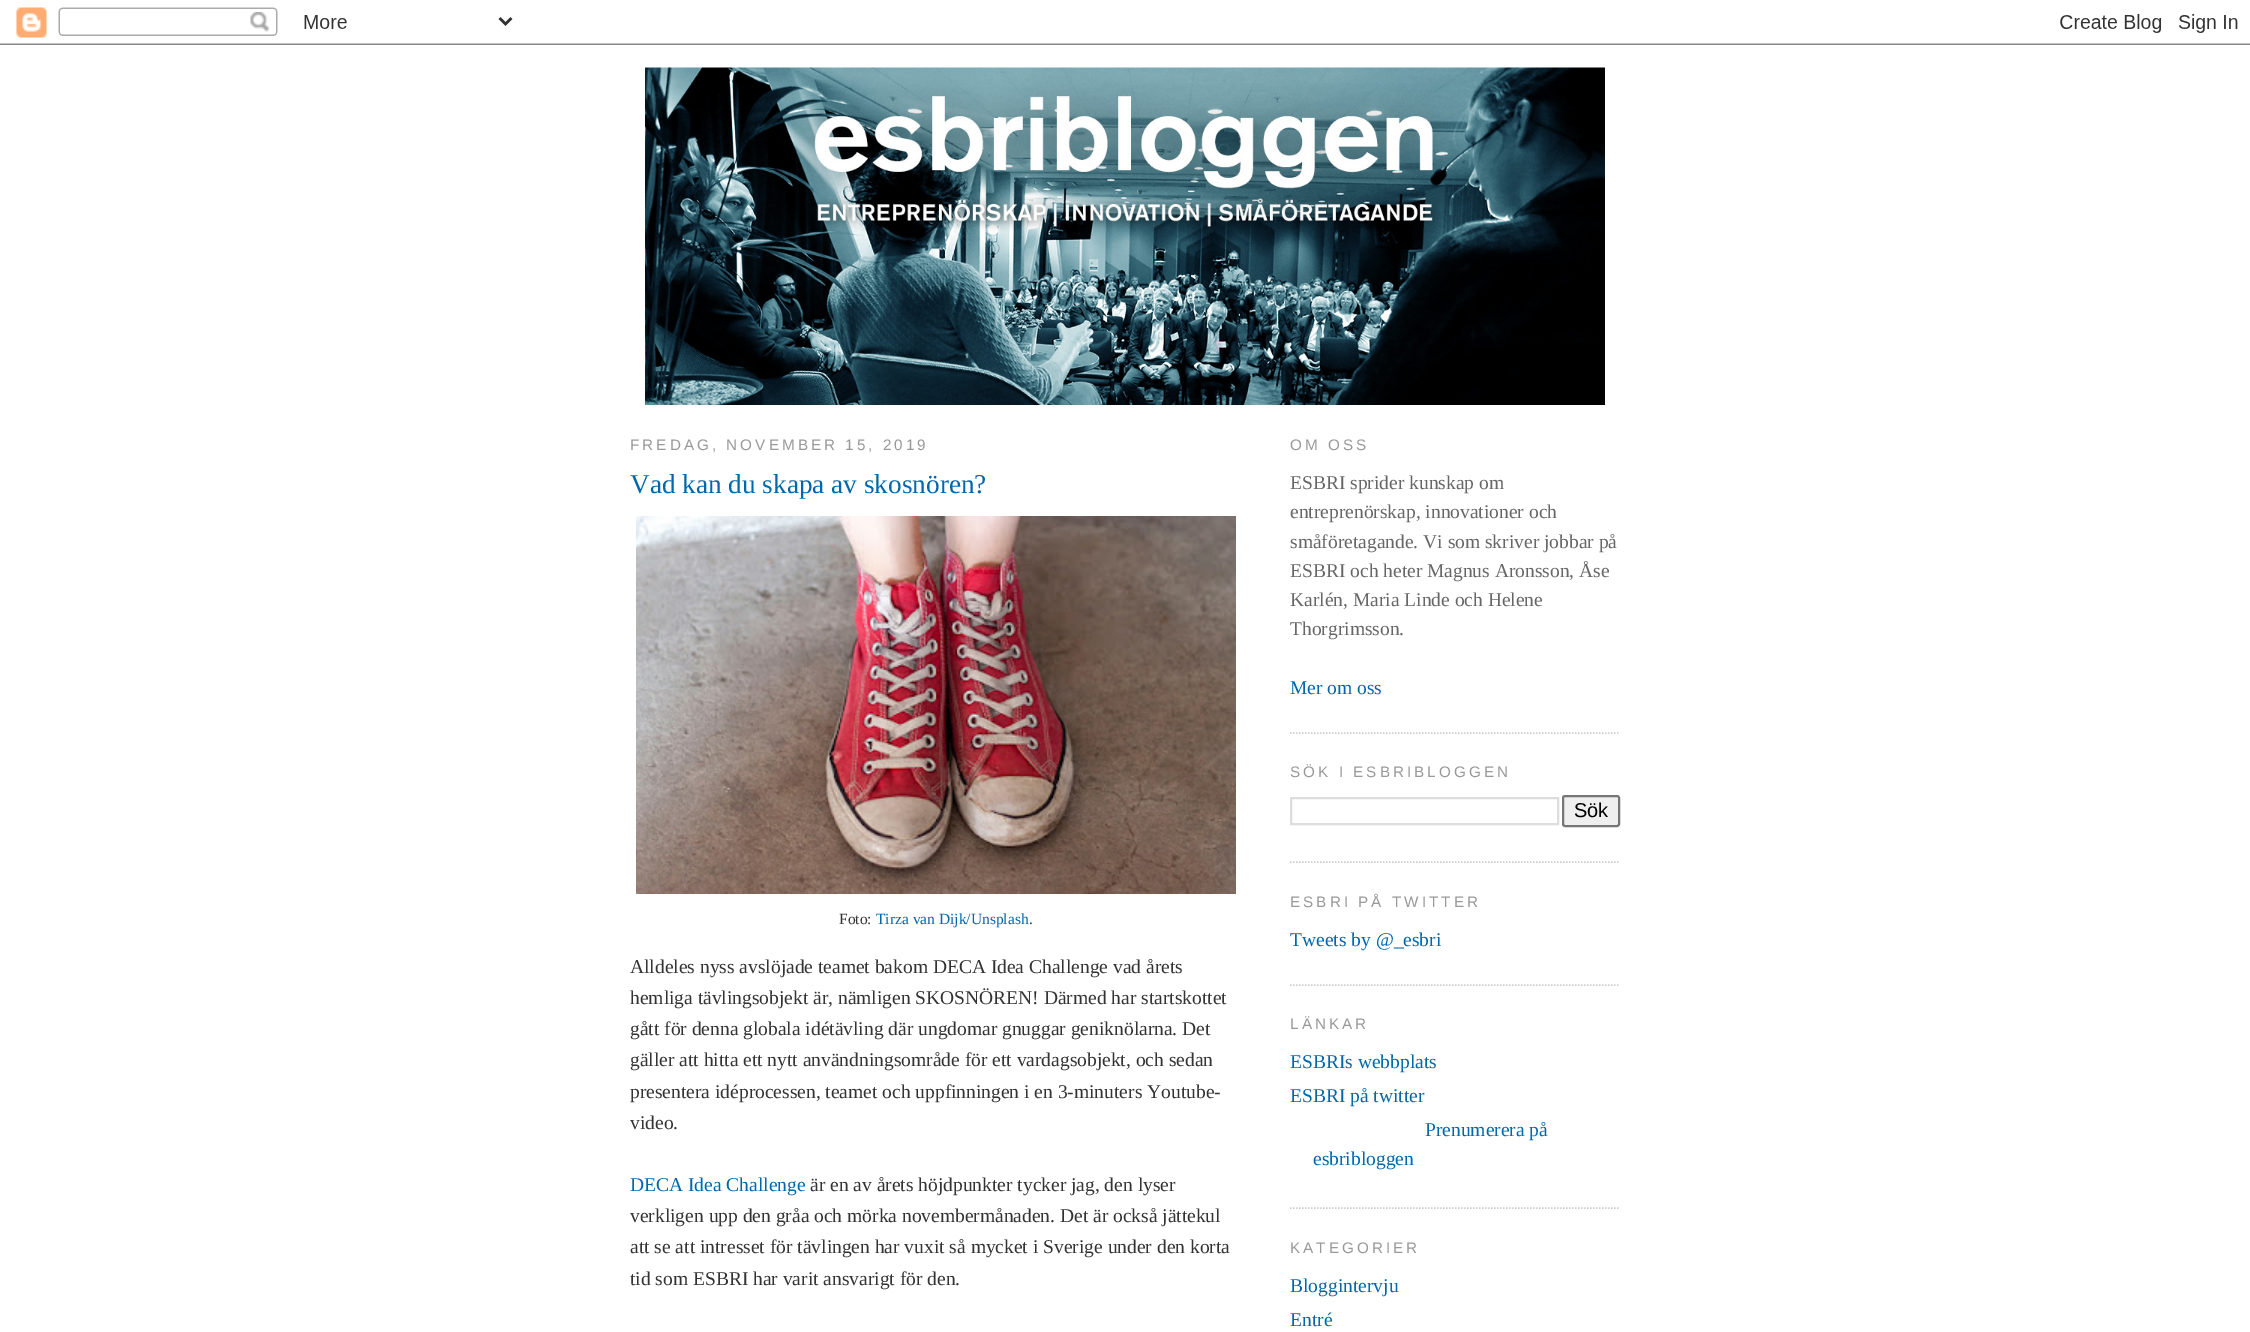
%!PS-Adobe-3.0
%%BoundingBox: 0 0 2250 1332
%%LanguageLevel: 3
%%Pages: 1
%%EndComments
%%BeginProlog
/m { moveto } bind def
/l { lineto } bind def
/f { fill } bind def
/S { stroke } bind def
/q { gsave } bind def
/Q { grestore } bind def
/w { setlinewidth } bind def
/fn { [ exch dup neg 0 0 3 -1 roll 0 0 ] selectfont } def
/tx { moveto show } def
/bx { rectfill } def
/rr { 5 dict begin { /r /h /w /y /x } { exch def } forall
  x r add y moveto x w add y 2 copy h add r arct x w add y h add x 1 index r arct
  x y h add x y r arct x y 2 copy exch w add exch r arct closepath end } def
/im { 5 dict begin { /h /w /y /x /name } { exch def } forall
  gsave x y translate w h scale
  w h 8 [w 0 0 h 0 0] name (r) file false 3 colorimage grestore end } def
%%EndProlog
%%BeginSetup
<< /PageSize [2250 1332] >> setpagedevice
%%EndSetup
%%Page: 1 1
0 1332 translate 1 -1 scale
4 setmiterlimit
1 setgray
0 0 2250 1332 bx
(image0.raw) 0 7 2250 38 im
(image1.raw) 645 67 960 338 im
/LiberationSans-Regular 15.25 fn
0.6 setgray
630 450 m 3.05 0 (FREDAG, NOVEMBER 15, 2019) ashow
/LiberationSerif-Regular 27.25 fn
0 0.404 0.667 setrgbcolor
(Vad kan du skapa av skosnören?) 630 493 tx
(image2.raw) 636 516 600 378 im
/LiberationSerif-Regular 15.5 fn
0.2 setgray
(Foto:) 839 924 tx
0 0.404 0.667 setrgbcolor
(Tirza van Dijk/Unsplash) 876 924 tx
0.2 setgray
(.) 1029 924 tx
/LiberationSerif-Regular 19.5 fn
(Alldeles nyss avslöjade teamet bakom DECA Idea Challenge vad årets) 630 973 tx
(hemliga tävlingsobjekt är, nämligen SKOSNÖREN! Därmed har startskottet) 630 1004 tx
(gått för denna globala idétävling där ungdomar gnuggar geniknölarna. Det) 630 1035 tx
(gäller att hitta ett nytt användningsområde för ett vardagsobjekt, och sedan) 630 1066 tx
(presentera idéprocessen, teamet och uppfinningen i en 3-minuters Youtube-) 630 1098 tx
(video.) 630 1129 tx
0 0.404 0.667 setrgbcolor
(DECA Idea Challenge) 630 1191 tx
0.2 setgray
(är en av årets höjdpunkter tycker jag, den lyser) 810 1191 tx
(verkligen upp den gråa och mörka novembermånaden. Det är också jättekul) 630 1222 tx
(att se att intresset för tävlingen har vuxit så mycket i Sverige under den korta) 630 1253 tx
(tid som ESBRI har varit ansvarigt för den.) 630 1285 tx
0.8 setgray
1.5 w
[1.5 1.5] 0 setdash
1290 733 m 1620 733 l S
/LiberationSans-Regular 15.25 fn
0.6 setgray
1290 450 m 3.05 0 (OM OSS) ashow
/LiberationSerif-Regular 19.5 fn
0.4 setgray
(ESBRI sprider kunskap om) 1290 489 tx
(entreprenörskap, innovationer och) 1290 518 tx
(småföretagande. Vi som skriver jobbar på) 1290 548 tx
(ESBRI och heter Magnus Aronsson, Åse) 1290 577 tx
(Karlén, Maria Linde och Helene) 1290 606 tx
(Thorgrimsson.) 1290 635 tx
0 0.404 0.667 setrgbcolor
(Mer om oss) 1290 694 tx
0.8 setgray
1290 862 m 1620 862 l S
/LiberationSans-Regular 15.25 fn
0.6 setgray
1290 777 m 3.05 0 (SÖK I ESBRIBLOGGEN) ashow
0.867 setgray
2 w
[] 0 setdash
1291 798 267 26 rectstroke
0.937 setgray
1563 796 56 30 2 rr q f Q
0.463 setgray
S
/LiberationSans-Regular 20 fn
0 setgray
(Sök) 1574 817 tx
0.8 setgray
1.5 w
[1.5 1.5] 0 setdash
1290 985 m 1620 985 l S
/LiberationSans-Regular 15.25 fn
0.6 setgray
1290 907 m 3.05 0 (ESBRI PÅ TWITTER) ashow
/LiberationSerif-Regular 19.5 fn
0 0.404 0.667 setrgbcolor
(Tweets by @_esbri) 1290 946 tx
0.8 setgray
1290 1208 m 1620 1208 l S
/LiberationSans-Regular 15.25 fn
0.6 setgray
1290 1029 m 3.05 0 (LÄNKAR) ashow
/LiberationSerif-Regular 19.5 fn
0 0.404 0.667 setrgbcolor
(ESBRIs webbplats) 1290 1068 tx
(ESBRI på twitter) 1290 1102 tx
(Prenumerera på) 1425 1136 tx
(esbribloggen) 1313 1165 tx
/LiberationSans-Regular 15.25 fn
0.6 setgray
1290 1253 m 3.05 0 (KATEGORIER) ashow
/LiberationSerif-Regular 19.5 fn
0 0.404 0.667 setrgbcolor
(Bloggintervju) 1290 1292 tx
(Entré) 1290 1326 tx
showpage
%%EOF
